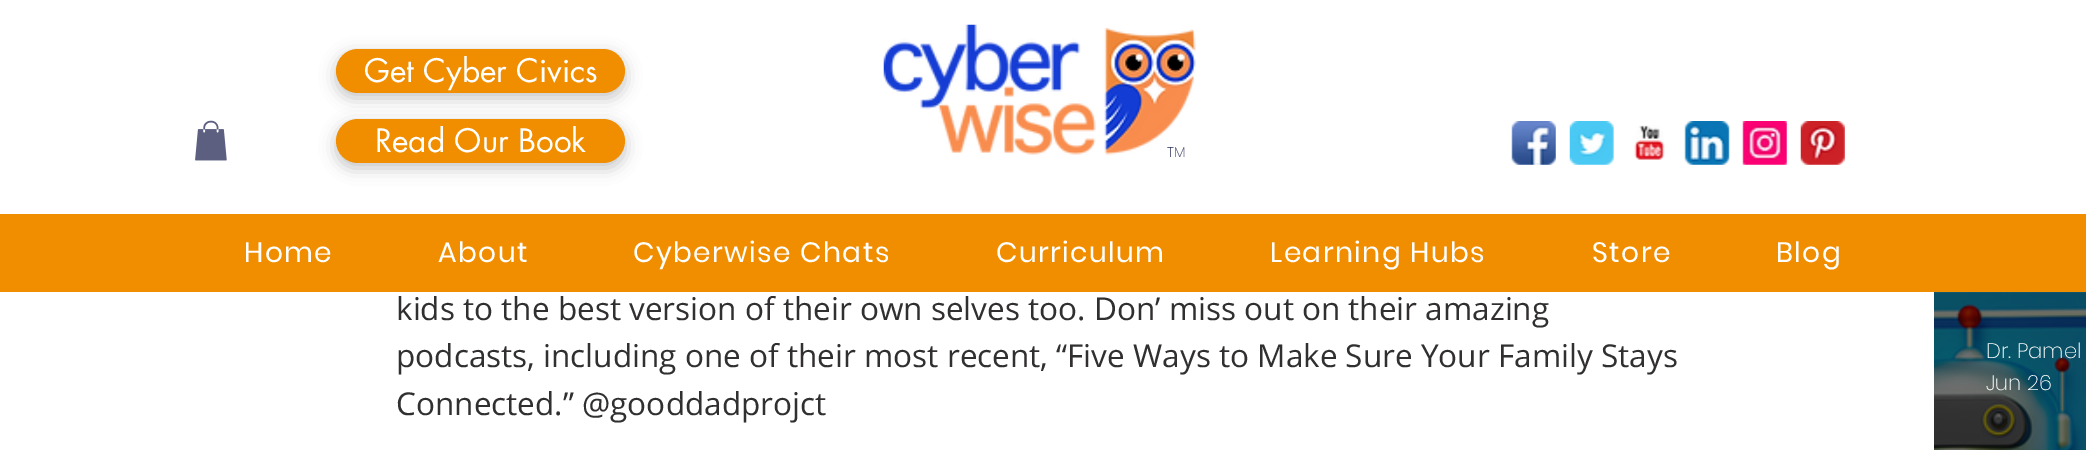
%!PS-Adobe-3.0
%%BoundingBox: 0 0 2086 450
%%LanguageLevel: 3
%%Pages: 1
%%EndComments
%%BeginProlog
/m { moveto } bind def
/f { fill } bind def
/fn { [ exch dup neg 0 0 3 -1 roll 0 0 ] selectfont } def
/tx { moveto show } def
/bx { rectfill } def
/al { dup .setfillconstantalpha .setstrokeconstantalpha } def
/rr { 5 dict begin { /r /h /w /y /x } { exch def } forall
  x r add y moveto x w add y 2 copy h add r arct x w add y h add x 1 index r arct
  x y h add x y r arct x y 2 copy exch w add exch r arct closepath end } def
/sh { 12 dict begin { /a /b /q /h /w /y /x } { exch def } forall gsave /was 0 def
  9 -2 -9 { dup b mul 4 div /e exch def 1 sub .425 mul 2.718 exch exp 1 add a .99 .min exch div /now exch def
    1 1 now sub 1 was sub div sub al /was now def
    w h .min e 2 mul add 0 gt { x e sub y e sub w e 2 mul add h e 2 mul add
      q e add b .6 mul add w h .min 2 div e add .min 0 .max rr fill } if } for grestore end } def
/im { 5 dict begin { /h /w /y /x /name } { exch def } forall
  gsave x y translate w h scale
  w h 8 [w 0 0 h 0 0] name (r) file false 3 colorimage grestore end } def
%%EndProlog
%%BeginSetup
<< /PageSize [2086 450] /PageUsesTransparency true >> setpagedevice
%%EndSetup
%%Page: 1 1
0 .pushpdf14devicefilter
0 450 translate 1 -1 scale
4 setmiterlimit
1 setgray
0 0 2086 450 bx
0 setgray
336 54 289 44 22 8 0.23 sh
0.945 0.557 0 setrgbcolor
336 49 289 44 22 rr f
/futura-Regular 31.5 fn
1 setgray
(Get Cyber Civics) 364 82 tx
(image0.raw) 883 24 313 131 im
(image1.raw) 195 120 32 41 im
0 setgray
336 124 289 44 22 8 0.23 sh
0.945 0.557 0 setrgbcolor
336 119 289 44 22 rr f
1 setgray
(Read Our Book) 375 152 tx
/Poppins-ExtraLight 14 fn
0.145 0.165 0.333 setrgbcolor
(TM) 1167 157 tx
(image2.raw) 1511 121 45 44 im
(image3.raw) 1569 121 45 44 im
(image4.raw) 1634 125 31 35 im
(image5.raw) 1684 121 46 44 im
(image6.raw) 1742 121 45 44 im
(image7.raw) 1800 121 45 44 im
0.945 0.557 0 setrgbcolor
0 214 2086 78 bx
/Poppins-Regular 28 fn
1 setgray
244 262 m 1.4 0 (Home) ashow
438 262 m 1.4 0 (About) ashow
633 262 m 1.4 0 (Cyberwise Chats) ashow
996 262 m 1.4 0 (Curriculum) ashow
1270 262 m 1.4 0 (Learning Hubs) ashow
1592 262 m 1.4 0 (Store) ashow
1776 262 m 1.4 0 (Blog) ashow
(image8.raw) 1934 292 152 158 im
0.04 al
1934 292 152 1 bx
/OpenSans-Regular 31.5 fn
1 al
0.192 0.184 0.184 setrgbcolor
(kids to the best version of their own selves too. Don’ miss out on their amazing) 396 320 tx
(podcasts, including one of their most recent, “Five Ways to Make Sure Your Family Stays) 396 367 tx
(Connected.” @gooddadprojct) 396 415 tx
/Poppins-ExtraLight 21 fn
1 setgray
(Dr. Pamel) 1986 358 tx
(Jun 26) 1986 390 tx
.poppdf14devicefilter showpage
%%EOF
